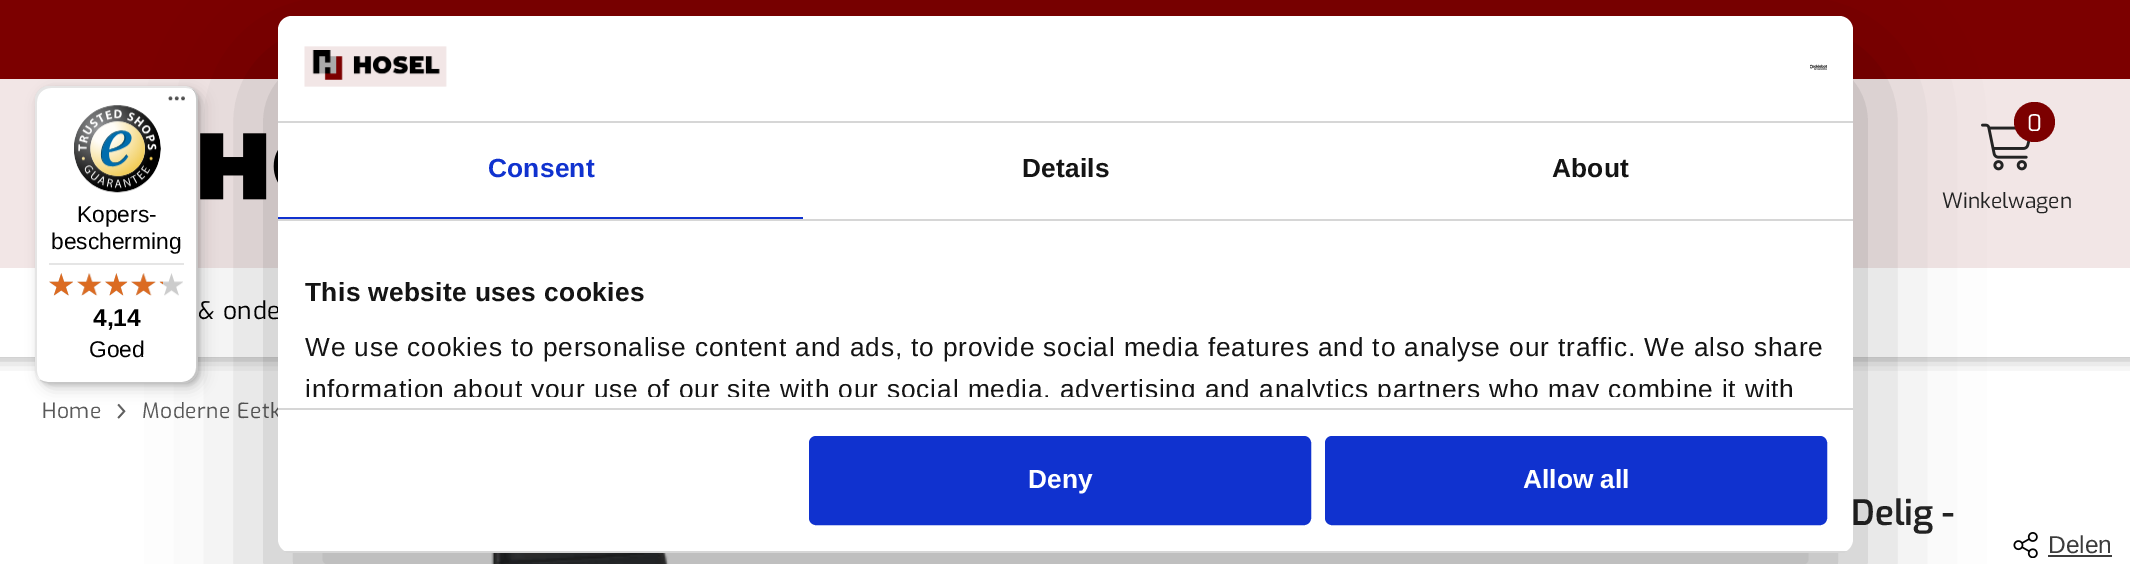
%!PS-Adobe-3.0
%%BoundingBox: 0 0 2130 564
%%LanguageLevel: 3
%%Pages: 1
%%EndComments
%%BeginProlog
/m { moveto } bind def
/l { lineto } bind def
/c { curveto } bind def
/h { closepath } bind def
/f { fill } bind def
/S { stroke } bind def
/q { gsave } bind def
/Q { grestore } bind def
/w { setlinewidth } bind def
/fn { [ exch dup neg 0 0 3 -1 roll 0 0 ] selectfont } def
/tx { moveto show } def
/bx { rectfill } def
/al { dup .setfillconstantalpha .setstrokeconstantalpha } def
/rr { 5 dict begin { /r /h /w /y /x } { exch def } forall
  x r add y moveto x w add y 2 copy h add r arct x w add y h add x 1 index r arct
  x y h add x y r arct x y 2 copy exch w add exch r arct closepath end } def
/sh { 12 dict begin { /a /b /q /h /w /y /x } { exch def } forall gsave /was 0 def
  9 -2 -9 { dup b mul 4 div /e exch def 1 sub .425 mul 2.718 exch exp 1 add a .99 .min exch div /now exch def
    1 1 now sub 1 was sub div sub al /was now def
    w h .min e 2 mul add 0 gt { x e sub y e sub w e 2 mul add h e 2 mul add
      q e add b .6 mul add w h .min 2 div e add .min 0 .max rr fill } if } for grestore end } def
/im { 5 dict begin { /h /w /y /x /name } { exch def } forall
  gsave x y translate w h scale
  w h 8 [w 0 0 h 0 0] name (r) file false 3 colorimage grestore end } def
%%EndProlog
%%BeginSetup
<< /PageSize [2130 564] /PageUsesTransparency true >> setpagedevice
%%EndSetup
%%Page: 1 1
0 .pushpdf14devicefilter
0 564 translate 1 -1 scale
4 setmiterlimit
1 setgray
0 0 2130 564 bx
0.486 0 0 setrgbcolor
0 0 2130 79 bx
q
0 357 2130 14 rectclip
0 setgray
-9 249 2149 106 0 9 0.5 sh
Q
0.949 0.902 0.902 setrgbcolor
0 79 2130 189 bx
(image0.raw) 200 133 78 67 im
(image1.raw) 1981 123 50 48 im
0.486 0 0 setrgbcolor
2014 102 41 40 20 rr f
/Exo-Regular 22.75 fn
1 setgray
(0) 2027 131 tx
/Exo-Regular 21 fn
0.137 setgray
(Winkelwagen) 1942 208 tx
/Exo-Regular 24.5 fn
0 setgray
198 319 m 0.75 0 (& onde) ashow
/Exo-Regular 21 fn
0.349 setgray
42 418 m 0.5 0 (Home) ashow
(image2.raw) 117 403 9 16 im
142 418 m 0.5 0 (Moderne Eetk) ashow
/Exo-SemiBold 35 fn
0.137 setgray
(Delig -) 1851 525 tx
(image3.raw) 2013 532 25 26 im
/LiberationSans-Regular 24.5 fn
0.235 setgray
(Delen) 2048 553 tx
2048 555 64 2 bx
(image4.raw) 490 553 179 11 im
0 setgray
40 91 163 298 14 7 0.15 sh
37 88 163 297 14 2 0.15 sh
278 72 1575 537 14 59.5 0.3 sh
1 setgray
35 86 163 297 14 rr f
0.1 al
0 setgray
51 88 m 186 88 l 189 88 193 89 195 92 c 193 88 189 86 184 86 c 49 86 l 41 86 35 92 35 100 c 35 369 l 35 373 37 377 40 379 c 38 377 37 374 37 371 c 37 102 l 37 94 43 88 51 88 c h f
0.2 al
40 380 m 43 382 46 383 49 383 c 184 383 l 192 383 198 377 198 369 c 198 100 l 198 96 196 92 193 90 c 195 92 196 95 196 98 c 196 368 l 196 375 190 382 182 382 c 47 382 l 45 382 42 381 40 380 c h f
0.196 setgray
40 379 m 42 382 45 383 49 383 c 184 383 l 192 383 198 377 198 369 c 198 100 l 198 95 196 91 192 89 c 195 91 197 95 197 99 c 197 368 l 197 376 190 382 183 382 c 48 382 l 45 382 42 381 40 379 c h f
0.3 al
1 setgray
40 379 m 42 382 45 383 49 383 c 184 383 l 192 383 198 377 198 369 c 198 100 l 198 96 197 93 194 91 c 196 93 197 96 197 99 c 197 368 l 197 376 191 382 183 382 c 48 382 l 45 382 42 381 40 379 c h f
1 al
(image5.raw) 168 96 17 5 im
(image6.raw) 74 105 87 88 im
/LiberationSans-Regular 22.75 fn
0 setgray
(Kopers-) 77 222 tx
(bescherming) 51 249 tx
0.898 setgray
49 263 135 2 bx
(image7.raw) 49 273 24 23 im
(image8.raw) 77 273 24 23 im
(image9.raw) 105 273 22 23 im
(image10.raw) 131 273 25 23 im
(image11.raw) 160 273 23 23 im
(image12.raw) 49 273 24 23 im
(image13.raw) 77 273 25 23 im
(image14.raw) 105 273 23 23 im
(image15.raw) 131 273 25 23 im
(image16.raw) 159 281 4 4 im
/LiberationSans-Bold 24.5 fn
0 setgray
(4,14) 93 326 tx
/LiberationSans-Regular 22.75 fn
(Goed) 89 357 tx
1 setgray
278 16 1575 537 14 rr f
0.839 setgray
278 121 1575 2 bx
(image17.raw) 304 46 143 41 im
(image18.raw) 1810 64 17 6 im
278 219 1575 2 bx
0.063 0.196 0.812 setrgbcolor
278 217 525 2 bx
/LiberationSans-Bold 26.25 fn
488 177 m 0.25 0 (Consent) ashow
0.078 setgray
1022 177 m 0.25 0 (Details) ashow
1552 177 m 0.25 0 (About) ashow
0.839 setgray
278 408 1575 2 bx
0.078 setgray
305 301 m 0.4 0 (This website uses cookies) ashow
/LiberationSans-Regular 26.25 fn
305 356 m 0.88 0 (We use cookies to personalise content and ads, to provide social media features and to analyse our traffic. We also share) ashow
q
289 229 1554 168 rectclip
305 398 m 0.88 0 (information about your use of our site with our social media, advertising and analytics partners who may combine it with) ashow
Q
q
278 16 1575 537 14 rr clip newpath
0.839 setgray
278 551 1575 2 bx
Q
0.063 0.196 0.812 setrgbcolor
811 438 498 85 5 rr q f Q
4 w
S
/LiberationSans-Bold 26.25 fn
1 setgray
(Deny) 1028 488 tx
0.063 0.196 0.812 setrgbcolor
1327 438 498 85 5 rr q f Q
S
1 setgray
(Allow all) 1523 488 tx
.poppdf14devicefilter showpage
%%EOF
